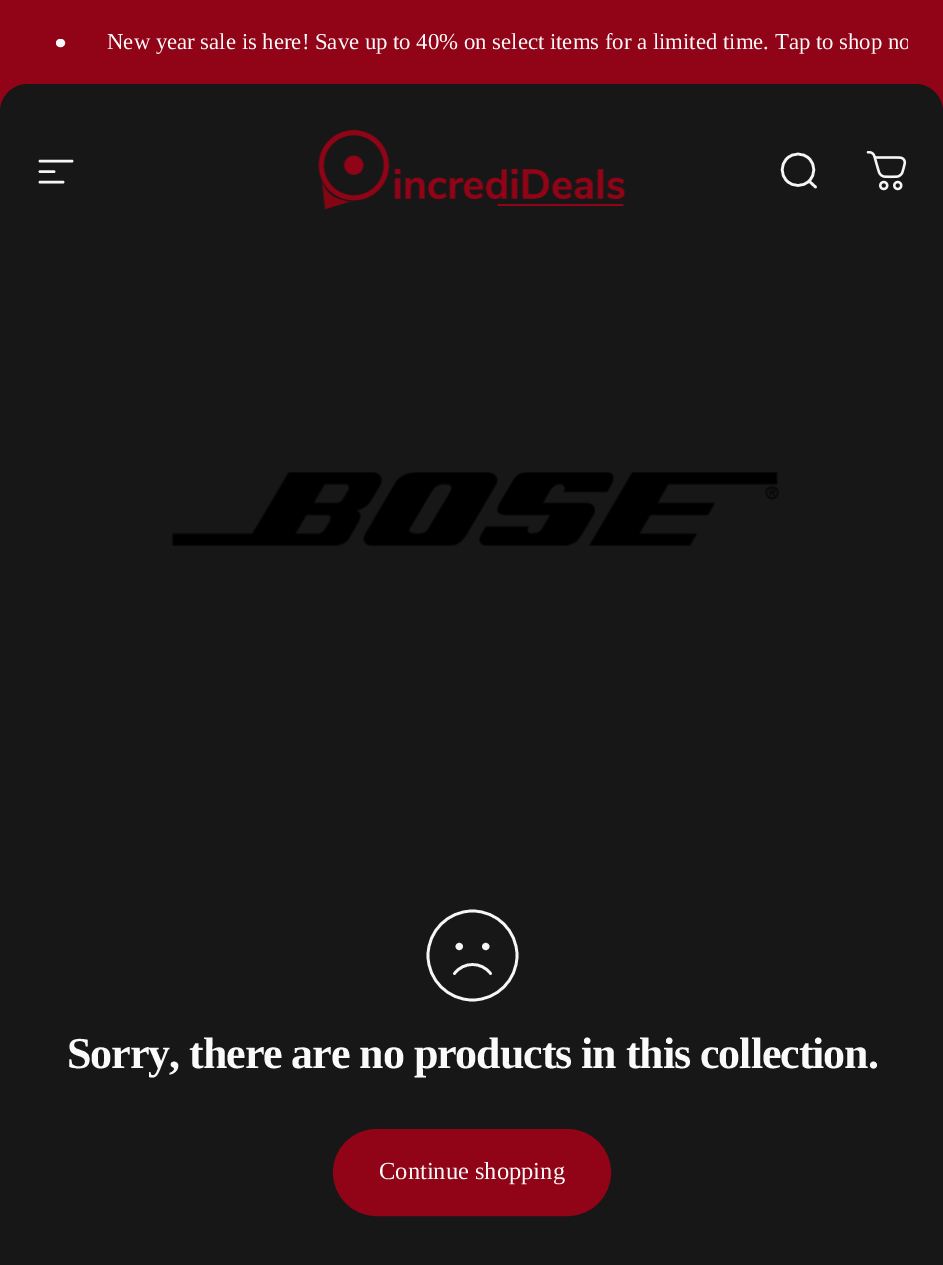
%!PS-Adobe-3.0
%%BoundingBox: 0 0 943 1265
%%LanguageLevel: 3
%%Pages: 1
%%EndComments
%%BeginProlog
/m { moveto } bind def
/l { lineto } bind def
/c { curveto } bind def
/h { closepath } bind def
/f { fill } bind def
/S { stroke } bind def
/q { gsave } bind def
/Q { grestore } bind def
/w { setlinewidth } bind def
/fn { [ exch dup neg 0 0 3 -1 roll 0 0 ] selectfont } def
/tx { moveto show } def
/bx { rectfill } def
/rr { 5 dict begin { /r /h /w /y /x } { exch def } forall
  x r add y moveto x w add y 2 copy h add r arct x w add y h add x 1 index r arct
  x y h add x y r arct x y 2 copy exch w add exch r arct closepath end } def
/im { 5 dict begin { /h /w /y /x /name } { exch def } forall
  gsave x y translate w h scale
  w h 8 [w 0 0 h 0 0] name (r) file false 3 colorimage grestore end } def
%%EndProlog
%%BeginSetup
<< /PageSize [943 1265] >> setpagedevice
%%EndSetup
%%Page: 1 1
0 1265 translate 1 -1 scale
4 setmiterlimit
0.09 setgray
0 0 943 1265 bx
0.569 0.016 0.09 setrgbcolor
0 0 943 28 bx
28 0 m 915 0 l 930.5 0 943 12.5 943 28 c 943 112 l 0 112 l 0 28 l 0 12.5 12.5 0 28 0 c h f
0.98 setgray
57 40 7 6 3 rr q f Q
2 w
S
q
35 0 873 84 rectclip
/LiberationSerif-Regular 22.75 fn
(New year sale is here! Save up to 40% on select items for a limited time. Tap to shop no) 107 49 tx
Q
0.09 setgray
28 84 m 915 84 l 930.5 84 943 96.5 943 112 c 943 259 l 0 259 l 0 112 l 0 96.5 12.5 84 28 84 c h f
0.965 setgray
2.6 w
1 setlinecap
40 161 m 72 161 l 40 171.5 m 54 171.5 l 40 182 m 63 182 l S
(image0.raw) 318 129 307 81 im
815.5 187 m 809 181 l 809 181 m 815.5 174.5 815.5 165 809 158.5 c 803 152.5 793 152.5 787 158.5 c 780.5 165 780.5 174.5 787 181 c 793 187 803 187 809 181 c h S
(image1.raw) 866 151 41 40 im
(image2.raw) 172 472 607 74 im
2.7 w
1 setlinejoin
461.5 946.5 m 461.5 949.5 457 949.5 457 946.5 c 461.5 946.5 m 461.5 943.5 457 943.5 457 946.5 c 461.5 946.5 m 457 946.5 l 488 946.5 m 488 949.5 483.5 949.5 483.5 946.5 c 488 946.5 m 488 943.5 483.5 943.5 483.5 946.5 c 488 946.5 m 483.5 946.5 l 490.5 973.5 m 481.5 961.5 463.5 961.5 454.5 973.5 c 472.5 1000 m 497 1000 517 980 517 955.5 c 517 931 497 911 472.5 911 c 448 911 428 931 428 955.5 c 428 980 448 1000 472.5 1000 c h S
/LiberationSerif-Bold 44.1 fn
0.98 setgray
67 1068 m -1.1 0 (Sorry, there are no products in this collection.) ashow
0.569 0.016 0.09 setrgbcolor
335 1131 274 83 41.5 rr q f Q
4 w
0 setlinecap
0 setlinejoin
S
/LiberationSerif-Regular 24.5 fn
0.98 setgray
(Continue shopping) 379 1179 tx
showpage
%%EOF
